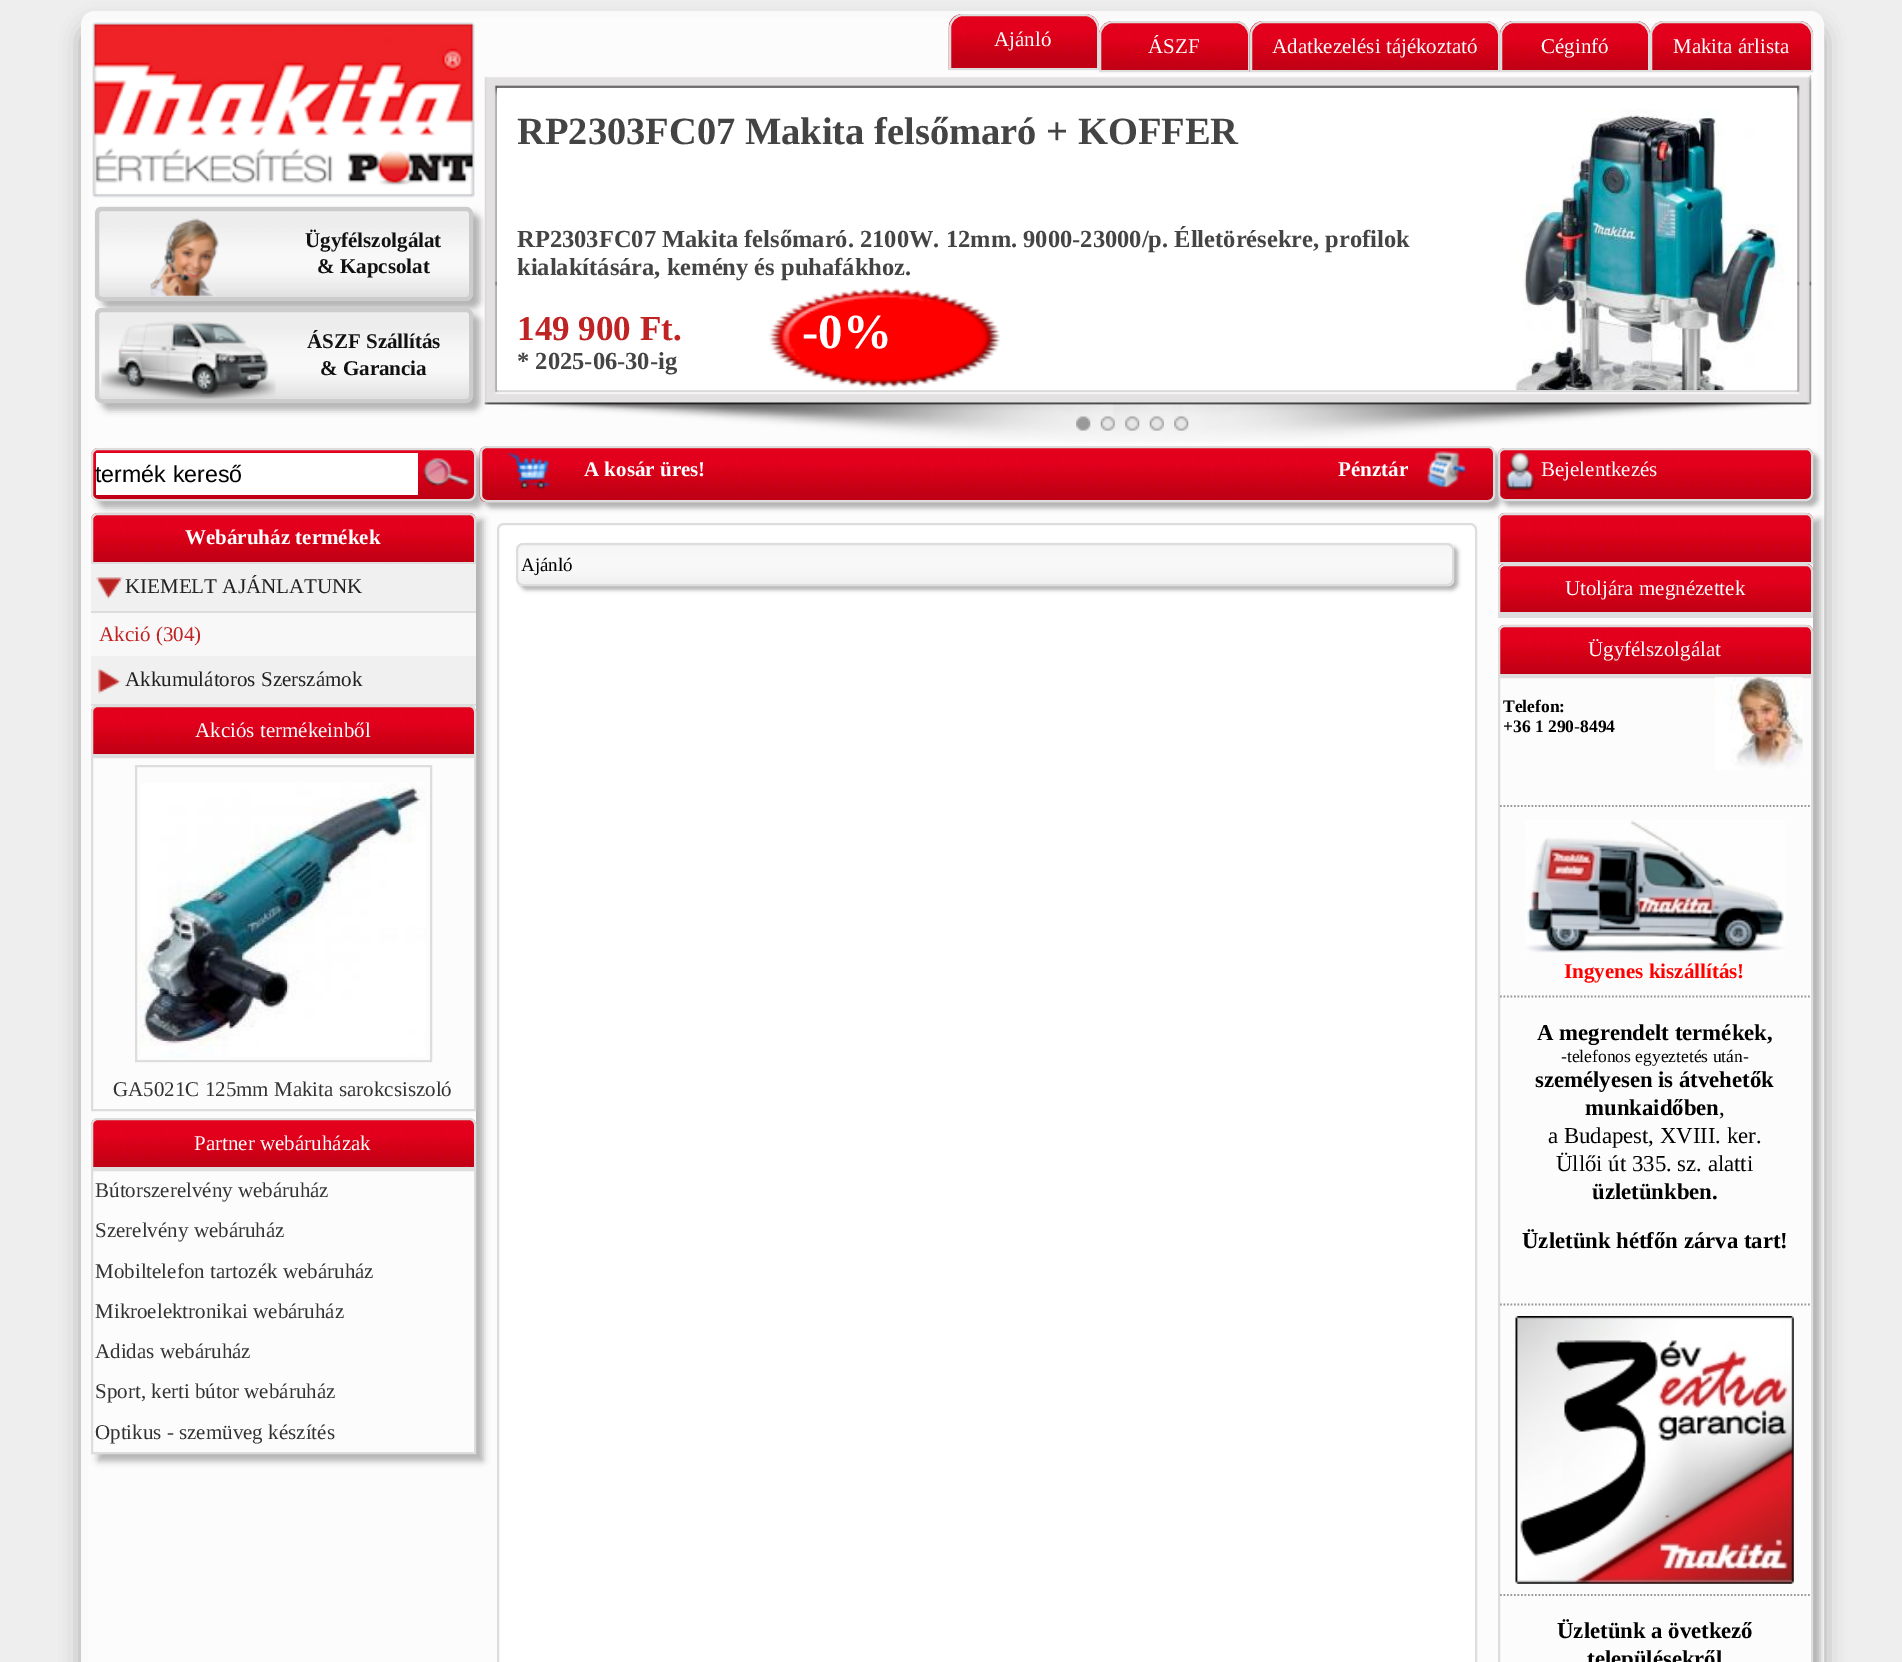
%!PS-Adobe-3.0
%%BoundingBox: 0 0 1902 1662
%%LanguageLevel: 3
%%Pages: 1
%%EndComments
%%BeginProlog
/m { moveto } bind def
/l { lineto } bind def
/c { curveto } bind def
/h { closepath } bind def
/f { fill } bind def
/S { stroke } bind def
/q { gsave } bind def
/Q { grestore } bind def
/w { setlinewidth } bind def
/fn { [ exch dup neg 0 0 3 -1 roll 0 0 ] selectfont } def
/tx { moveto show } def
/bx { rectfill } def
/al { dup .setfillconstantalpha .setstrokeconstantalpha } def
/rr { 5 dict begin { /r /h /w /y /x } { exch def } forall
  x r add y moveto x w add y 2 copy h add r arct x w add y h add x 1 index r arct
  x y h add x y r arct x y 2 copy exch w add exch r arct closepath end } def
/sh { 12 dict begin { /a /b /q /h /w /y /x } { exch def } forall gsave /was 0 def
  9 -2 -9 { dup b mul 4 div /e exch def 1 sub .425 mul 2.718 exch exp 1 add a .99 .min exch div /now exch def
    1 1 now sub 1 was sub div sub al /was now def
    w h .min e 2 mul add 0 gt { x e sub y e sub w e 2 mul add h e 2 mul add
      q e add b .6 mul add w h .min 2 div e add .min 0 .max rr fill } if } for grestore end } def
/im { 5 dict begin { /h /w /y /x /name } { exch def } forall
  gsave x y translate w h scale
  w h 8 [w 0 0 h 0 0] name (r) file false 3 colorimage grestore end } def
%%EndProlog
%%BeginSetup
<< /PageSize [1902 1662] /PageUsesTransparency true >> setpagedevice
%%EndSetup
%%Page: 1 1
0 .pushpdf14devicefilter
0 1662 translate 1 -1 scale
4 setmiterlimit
0.933 setgray
0 0 1902 1662 bx
0 setgray
81 25 1743 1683 14 10.5 0.3 sh
0.988 setgray
95 14.5 m 1810 14.5 l 1816 14.5 1820.5 19 1820.5 25 c 1820.5 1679.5 l 84.5 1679.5 l 84.5 25 l 84.5 19 89 14.5 95 14.5 c h q f Q
0.98 setgray
7 w
S
(image0.raw) 948 14 151 56 im
0.867 setgray
2 w
963 15 m 1085 15 l 1092 15 1098 21 1098 28 c 1098 69 l 950 69 l 950 28 l 950 21 956 15 963 15 c h S
/LiberationSerif-Regular 21 fn
1 setgray
(Ajánló) 994 46 tx
(image1.raw) 1099 21 151 49 im
0.867 setgray
1113 22 m 1236 22 l 1243 22 1249 28 1249 35 c 1249 71 l 1100 71 l 1100 35 l 1100 28 1106 22 1113 22 c h S
1 setgray
(ÁSZF) 1148 53 tx
(image2.raw) 1249 21 251 51 im
0.867 setgray
1264 22 m 1486 22 l 1493 22 1499 28 1499 35 c 1499 71 l 1251 71 l 1251 35 l 1251 28 1257 22 1264 22 c h S
1 setgray
(Adatkezelési tájékoztató) 1272 53 tx
(image3.raw) 1499 21 152 51 im
0.867 setgray
1514 22 m 1636 22 l 1643 22 1649 28 1649 35 c 1649 71 l 1501 71 l 1501 35 l 1501 28 1507 22 1514 22 c h S
1 setgray
(Céginfó) 1541 53 tx
(image4.raw) 1650 21 163 49 im
0.867 setgray
1664 22 m 1799 22 l 1806 22 1812 28 1812 35 c 1812 71 l 1651 71 l 1651 35 l 1651 28 1657 22 1664 22 c h S
1 setgray
(Makita árlista) 1673 53 tx
(image5.raw) 92 22 383 176 im
0 setgray
102 214 378 94 7 3.5 0.3 sh
(image6.raw) 94 206 379 95 im
0.8 setgray
4 w
97 209 374 90 5 rr S
(image7.raw) 150 218 69 79 im
/LiberationSerif-Bold 21 fn
0.067 setgray
(Ügyfélszolgálat) 305 247 tx
(& Kapcsolat) 317 273 tx
0 setgray
102 315 378 95 7 3.5 0.3 sh
(image8.raw) 94 308 379 94 im
0.8 setgray
97 310 374 91 5 rr S
(image9.raw) 101 321 175 78 im
0.067 setgray
(ÁSZF Szállítás) 307 348 tx
(& Garancia) 320 375 tx
(image10.raw) 484 75 1328 367 im
1 setgray
497 88 1300 302 bx
/LiberationSerif-Bold 38.5 fn
0.267 setgray
(RP2303FC07 Makita felsőmaró + KOFFER) 517 144 tx
/LiberationSerif-Bold 24.5 fn
(RP2303FC07 Makita felsőmaró. 2100W. 12mm. 9000-23000/p. Élletörésekre, profilok) 517 247 tx
(kialakítására, kemény és puhafákhoz.) 517 275 tx
/LiberationSerif-Bold 35 fn
0.753 0.137 0.137 setrgbcolor
(149 900 Ft.) 517 340 tx
/LiberationSerif-Bold 24.5 fn
0.267 setgray
(* 2025-06-30-ig) 517 369 tx
(image11.raw) 768 288 233 100 im
/LiberationSerif-Bold 49 fn
1 setgray
(-0%) 802 348 tx
(image12.raw) 1514 109 270 282 im
(image13.raw) 1076 416 15 15 im
(image14.raw) 1100 416 15 15 im
(image15.raw) 1125 416 15 15 im
(image16.raw) 1149 416 15 15 im
(image17.raw) 1174 416 15 15 im
q
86 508 m 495 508 l 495 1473 l 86 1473 l h 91 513 m 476 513 l 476 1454 l 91 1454 l h eoclip newpath
0 setgray
98 520 385 941 0 3.5 0.3 sh
Q
(image25.raw) 91 512 385 50 im
0.867 setgray
2 w
98 514 m 469 514 l 472.5 514 475 516.5 475 520 c 475 563 l 92 563 l 92 520 l 92 516.5 94.5 514 98 514 c h S
0 setgray
98 455 385 53 7 3.5 0.3 sh
(image18.raw) 91 448 385 53 im
0.867 setgray
92 449 383 51 6 rr S
1 setgray
96 453 322 42 bx
/LiberationSans-Regular 23.25 fn
0 setgray
(termék kereső) 95 482 tx
(image19.raw) 423 457 47 30 im
485 452 1015 56 7 2.5 0.3 sh
(image20.raw) 479 446 1016 57 im
0.867 setgray
481 447 1013 54 6 rr S
(image21.raw) 507 452 43 38 im
/LiberationSerif-Bold 21 fn
1 setgray
(A kosár üres!) 584 476 tx
(Pénztár) 1338 476 tx
(image22.raw) 1426 451 41 38 im
0 setgray
1503 453 315 53 7 2.5 0.3 sh
(image23.raw) 1498 448 315 53 im
0.867 setgray
1499 449 313 51 6 rr S
(image24.raw) 1504 451 31 40 im
/LiberationSerif-Regular 21 fn
1 setgray
(Bejelentkezés) 1541 476 tx
/LiberationSerif-Bold 21 fn
(Webáruház termékek) 185 544 tx
0.941 setgray
91 564 385 47 bx
(image26.raw) 96 577 27 22 im
0.867 setgray
91 611 385 2 bx
/LiberationSerif-Regular 21 fn
0.133 setgray
(KIEMELT AJÁNLATUNK) 125 593 tx
0.973 setgray
91 613 385 43 bx
0.753 0.137 0.137 setrgbcolor
(Akció \(304\)) 99 641 tx
0.941 setgray
91 656 385 48 bx
(image27.raw) 98 668 23 26 im
0.867 setgray
91 704 385 2 bx
0.133 setgray
(Akkumulátoros Szerszámok) 125 686 tx
(image28.raw) 91 705 385 49 im
0.867 setgray
98 706 m 469 706 l 472.5 706 475 708.5 475 712 c 475 755 l 92 755 l 92 712 l 92 708.5 94.5 706 98 706 c h S
1 setgray
(Akciós termékeinből) 195 737 tx
0.867 setgray
92 757 383 353 rectstroke
136 766 295 295 rectstroke
(image29.raw) 140 783 285 274 im
0.2 setgray
(GA5021C 125mm Makita sarokcsiszoló) 113 1096 tx
(image30.raw) 91 1118 385 49 im
0.867 setgray
98 1119 m 469 1119 l 472.5 1119 475 1121.5 475 1125 c 475 1168 l 92 1168 l 92 1125 l 92 1121.5 94.5 1119 98 1119 c h S
1 setgray
(Partner webáruházak) 194 1150 tx
0.867 setgray
92 1170 383 283 rectstroke
0.2 setgray
(Bútorszerelvény webáruház) 95 1197 tx
(Szerelvény webáruház) 95 1237 tx
(Mobiltelefon tartozék webáruház) 95 1278 tx
(Mikroelektronikai webáruház) 95 1318 tx
(Adidas webáruház) 95 1358 tx
(Sport, kerti bútor webáruház) 95 1398 tx
(Optikus - szemüveg készítés) 95 1439 tx
1 setgray
504 524 m 1470 524 l 1473.5 524 1476 526.5 1476 530 c 1476 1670 l 498 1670 l 498 530 l 498 526.5 500.5 524 504 524 c h q f Q
0.867 setgray
S
0 setgray
520 546 938 44 7 2 0.3 sh
(image31.raw) 516 543 938 43 im
0.867 setgray
517 544 936 41 6 rr S
/LiberationSerif-Regular 19 fn
0 setgray
(Ajánló) 521 571 tx
q
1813 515 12 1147 rectclip
1505 520 315 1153 0 3.5 0.3 sh
Q
(image32.raw) 1498 512 315 50 im
0.867 setgray
1505 514 m 1806 514 l 1809.5 514 1812 516.5 1812 520 c 1812 563 l 1499 563 l 1499 520 l 1499 516.5 1501.5 514 1505 514 c h S
(image33.raw) 1498 564 315 48 im
1505 565 m 1806 565 l 1809.5 565 1812 567.5 1812 571 c 1812 613 l 1499 613 l 1499 571 l 1499 567.5 1501.5 565 1505 565 c h S
/LiberationSerif-Regular 21 fn
1 setgray
(Utoljára megnézettek) 1565 595 tx
0.867 setgray
1498 614 315 4 bx
(image34.raw) 1498 624 315 50 im
1505 626 m 1806 626 l 1809.5 626 1812 628.5 1812 632 c 1812 675 l 1499 675 l 1499 632 l 1499 628.5 1501.5 626 1505 626 c h S
1 setgray
(Ügyfélszolgálat) 1588 656 tx
0.867 setgray
1499 677 313 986 rectstroke
/LiberationSerif-Bold 17.5 fn
0 setgray
(Telefon:) 1503 712 tx
(image35.raw) 1715 677 88 93 im
(+36 1 290-8494) 1503 732 tx
0.6 setgray
1.8 w
[1.75 1.75] 0 setdash
1500 806 m 1811 806 l S
(image36.raw) 1525 820 260 133 im
/LiberationSerif-Bold 21 fn
1 0 0 setrgbcolor
(Ingyenes kiszállítás!) 1564 978 tx
0.6 setgray
1500 996.5 m 1811 996.5 l S
/LiberationSerif-Bold 22.75 fn
0 setgray
(A megrendelt termékek,) 1537 1040 tx
/LiberationSerif-Regular 17.5 fn
(-telefonos egyeztetés után-) 1561 1062 tx
/LiberationSerif-Bold 22.75 fn
(személyesen is átvehetők) 1535 1087 tx
(munkaidőben) 1585 1115 tx
/LiberationSerif-Regular 22.75 fn
(,) 1719 1115 tx
(a Budapest, XVIII. ker.) 1548 1143 tx
(Üllői út 335. sz. alatti) 1556 1171 tx
/LiberationSerif-Bold 22.75 fn
(üzletünkben.) 1592 1199 tx
(Üzletünk hétfőn zárva tart!) 1522 1248 tx
0.6 setgray
1500 1304.5 m 1811 1304.5 l S
(image37.raw) 1515 1316 279 268 im
1500 1595 m 1811 1595 l S
0 setgray
(Üzletünk a övetkező) 1557 1638 tx
(településekről) 1587 1666 tx
.poppdf14devicefilter showpage
%%EOF
